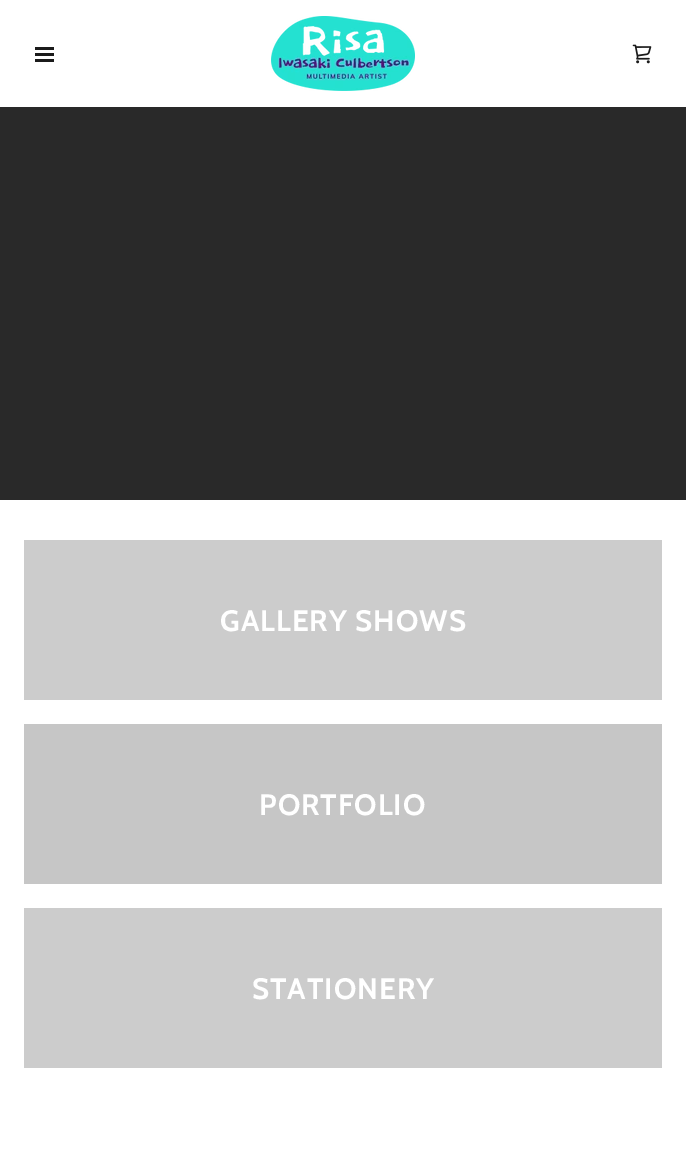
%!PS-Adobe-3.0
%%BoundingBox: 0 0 686 1158
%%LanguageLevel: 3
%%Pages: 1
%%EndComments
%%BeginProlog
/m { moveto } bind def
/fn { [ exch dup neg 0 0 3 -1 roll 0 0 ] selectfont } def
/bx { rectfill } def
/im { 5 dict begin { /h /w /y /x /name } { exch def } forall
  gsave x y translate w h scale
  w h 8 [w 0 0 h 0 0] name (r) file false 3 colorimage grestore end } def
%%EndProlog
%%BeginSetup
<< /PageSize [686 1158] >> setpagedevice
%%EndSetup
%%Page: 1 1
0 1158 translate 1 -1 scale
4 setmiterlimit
1 setgray
0 0 686 1158 bx
0.161 setgray
0 107 686 393 bx
0.106 setgray
35 47 19 3 bx
35 53 19 3 bx
35 59 19 3 bx
(image0.raw) 271 16 144 75 im
(image1.raw) 632 44 20 20 im
0.8 setgray
24 540 638 160 bx
/Cabin-Bold 29.5 fn
1 setgray
220 631 m 1 0 (GALLERY SHOWS) ashow
0.776 setgray
24 724 638 160 bx
1 setgray
259 815 m 1 0 (PORTFOLIO) ashow
0.8 setgray
24 908 638 160 bx
1 setgray
252 999 m 1 0 (STATIONERY) ashow
showpage
%%EOF
